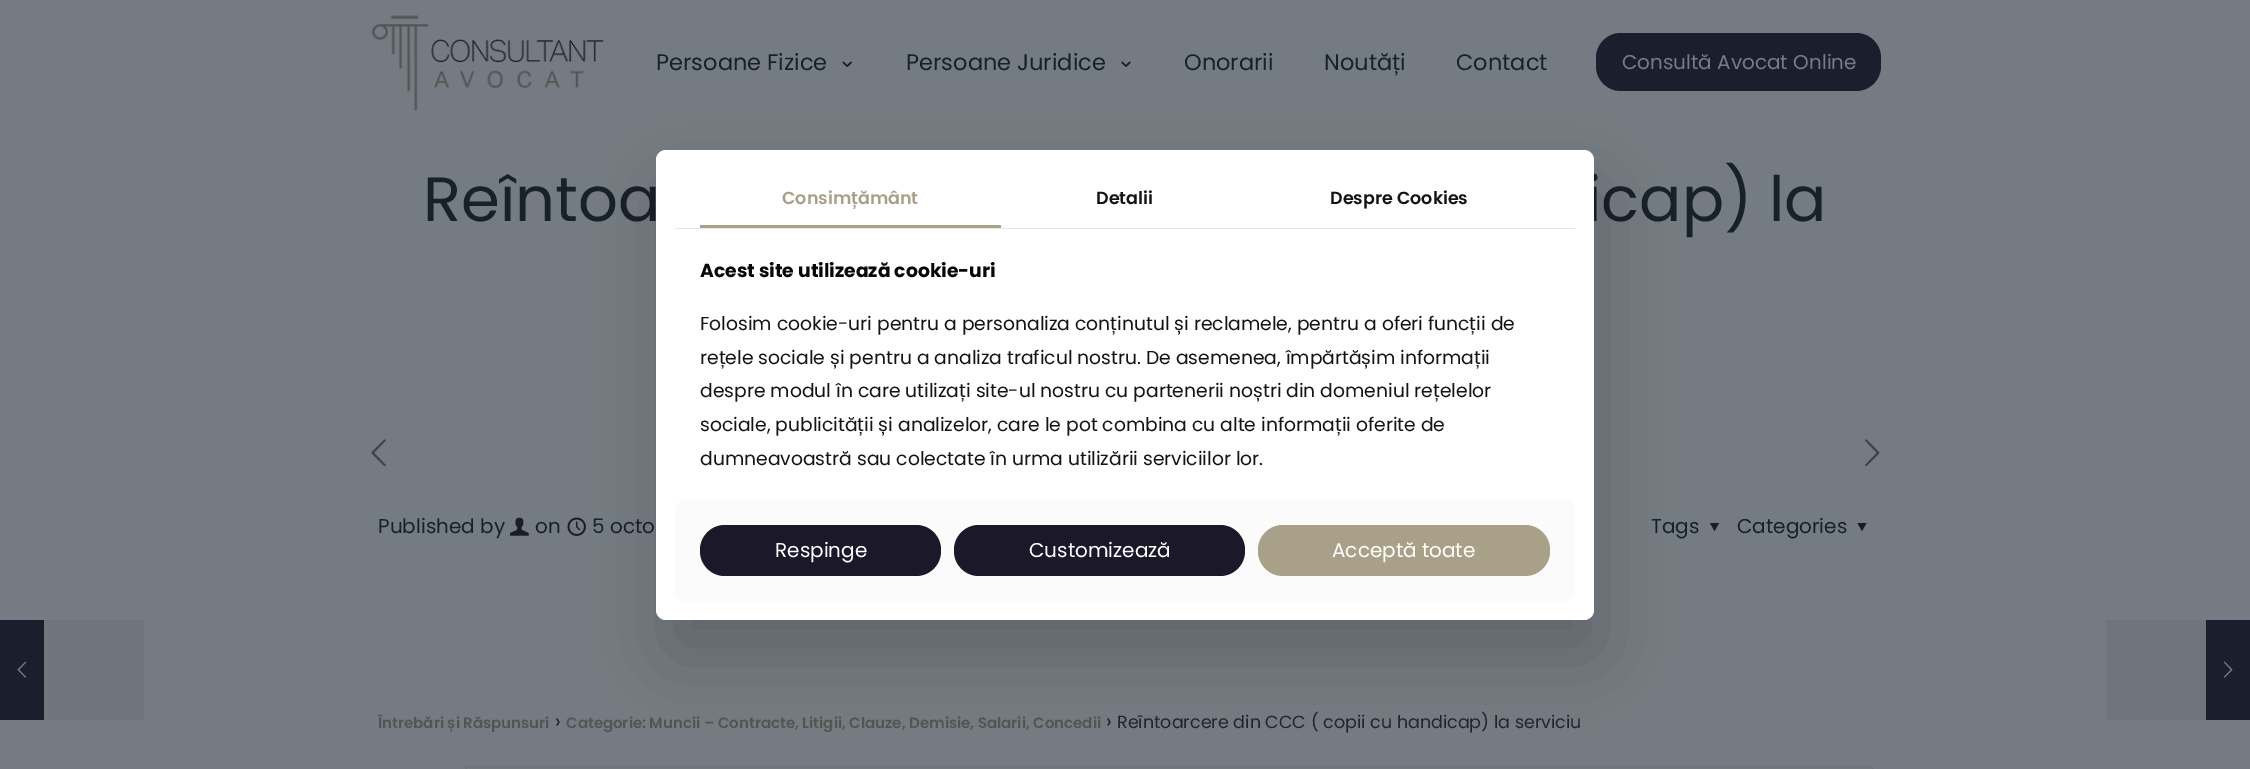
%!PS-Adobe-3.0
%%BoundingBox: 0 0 2250 769
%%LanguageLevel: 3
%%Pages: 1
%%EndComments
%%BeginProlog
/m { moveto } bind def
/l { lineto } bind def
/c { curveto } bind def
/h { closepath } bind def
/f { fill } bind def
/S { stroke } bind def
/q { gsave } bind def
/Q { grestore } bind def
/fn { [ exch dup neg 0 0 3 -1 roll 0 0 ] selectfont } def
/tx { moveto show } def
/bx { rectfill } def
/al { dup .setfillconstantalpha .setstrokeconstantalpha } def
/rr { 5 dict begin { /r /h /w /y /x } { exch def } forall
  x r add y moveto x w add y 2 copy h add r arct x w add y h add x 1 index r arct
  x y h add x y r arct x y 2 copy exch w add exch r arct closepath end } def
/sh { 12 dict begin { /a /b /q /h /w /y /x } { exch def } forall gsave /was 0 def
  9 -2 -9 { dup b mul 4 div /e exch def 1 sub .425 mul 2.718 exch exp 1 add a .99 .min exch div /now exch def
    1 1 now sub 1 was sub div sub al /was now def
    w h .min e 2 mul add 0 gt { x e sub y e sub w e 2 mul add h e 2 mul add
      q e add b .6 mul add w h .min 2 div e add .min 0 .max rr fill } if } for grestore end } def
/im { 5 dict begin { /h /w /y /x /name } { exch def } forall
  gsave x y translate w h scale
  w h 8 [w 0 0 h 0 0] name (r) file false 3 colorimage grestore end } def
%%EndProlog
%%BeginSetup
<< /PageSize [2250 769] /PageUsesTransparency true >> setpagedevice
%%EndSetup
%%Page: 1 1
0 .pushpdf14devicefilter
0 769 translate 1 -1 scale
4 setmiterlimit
0.455 0.482 0.51 setrgbcolor
0 0 2250 769 bx
(image0.raw) 371 15 233 96 im
/Poppins-Regular 22.5 fn
0.094 0.125 0.165 setrgbcolor
(Persoane Fizice) 656 70 tx
(image1.raw) 842 61 10 6 im
(Persoane Juridice) 906 70 tx
(image2.raw) 1121 61 10 6 im
(Onorarii) 1184 70 tx
(Noutăți) 1324 70 tx
(Contact) 1456 70 tx
0.098 0.122 0.176 setrgbcolor
1596 33 285 58 25 rr f
/Poppins-Regular 20 fn
0.459 0.486 0.514 setrgbcolor
(Consultă Avocat Online) 1622 69 tx
/Poppins-Regular 62.5 fn
0.094 0.125 0.165 setrgbcolor
(Reîntoa) 423 221 tx
(icap\) la) 1586 221 tx
(image3.raw) 371 439 15 28 im
(image4.raw) 1865 439 15 28 im
/Poppins-Regular 20 fn
(Published by) 378 533 tx
(image5.raw) 510 517 19 19 im
(on) 535 533 tx
(image6.raw) 567 517 19 19 im
(5 octo) 592 533 tx
(Tags) 1651 533 tx
0.09 0.118 0.145 setrgbcolor
1719 523 m 1714.5 531 l 1710 523 l h f
0.094 0.125 0.165 setrgbcolor
(Categories) 1737 533 tx
0.09 0.118 0.145 setrgbcolor
1866.5 523 m 1862 531 l 1857.5 523 l h f
/Poppins-SemiBold 15 fn
0.322 0.337 0.325 setrgbcolor
(Întrebări și Răspunsuri) 378 728 tx
/Poppins-Regular 20 fn
0.094 0.125 0.165 setrgbcolor
(›) 555 728 tx
/Poppins-SemiBold 15 fn
0.322 0.337 0.325 setrgbcolor
(Categorie: Muncii – Contracte, Litigii, Clauze, Demisie, Salarii, Concedii) 566 728 tx
/Poppins-Regular 20 fn
0.094 0.125 0.165 setrgbcolor
(›) 1106 728 tx
/Poppins-Regular 17.5 fn
0.122 0.149 0.176 setrgbcolor
(Reîntoarcere din CCC \( copii cu handicap\) la serviciu) 1117 728 tx
0.443 0.471 0.494 setrgbcolor
467.5 766.5 m 1870.5 766.5 l 1871.5 766.5 1872.5 767.5 1872.5 768.5 c 1872.5 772.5 l 465.5 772.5 l 465.5 768.5 l 465.5 767.5 466.5 766.5 467.5 766.5 c h q f Q
0.42 0.451 0.475 setrgbcolor
S
0 setgray
664 188 937 470 10 37.5 0.18 sh
1 setgray
656 150 938 470 10 rr f
0.902 0.902 0.906 setrgbcolor
675 228 900 1 bx
/Poppins-SemiBold 17.5 fn
0.659 0.627 0.533 setrgbcolor
(Consimțământ) 782 204 tx
700 225 301 3 bx
0.078 setgray
(Detalii) 1096 204 tx
(Despre Cookies) 1330 204 tx
/Poppins-Bold 18.75 fn
0.027 0.027 0.039 setrgbcolor
(Acest site utilizează cookie-uri) 700 277 tx
/Poppins-Regular 18.75 fn
0.078 setgray
(Folosim cookie-uri pentru a personaliza conținutul și reclamele, pentru a oferi funcții de) 700 330 tx
(rețele sociale și pentru a analiza traficul nostru. De asemenea, împărtășim informații) 700 364 tx
(despre modul în care utilizați site-ul nostru cu partenerii noștri din domeniul rețelelor) 700 397 tx
(sociale, publicității și analizelor, care le pot combina cu alte informații oferite de) 700 431 tx
(dumneavoastră sau colectate în urma utilizării serviciilor lor.) 700 465 tx
0.984 setgray
675 500 900 101 10 rr f
0.102 0.094 0.161 setrgbcolor
700 525 241 51 25 rr f
/Poppins-Regular 20 fn
1 setgray
(Respinge) 775 557 tx
0.102 0.094 0.161 setrgbcolor
954 525 291 51 25 rr f
1 setgray
(Customizează) 1029 557 tx
0.659 0.627 0.533 setrgbcolor
1258 525 292 51 25 rr f
1 setgray
(Acceptă toate) 1332 557 tx
0.098 0.122 0.176 setrgbcolor
0 620 44 100 bx
(image7.raw) 17 661 10 17 im
0.431 0.459 0.486 setrgbcolor
44 620 100 100 bx
2106 620 100 100 bx
0.098 0.122 0.176 setrgbcolor
2206 620 44 100 bx
(image8.raw) 2223 661 10 17 im
.poppdf14devicefilter showpage
%%EOF
